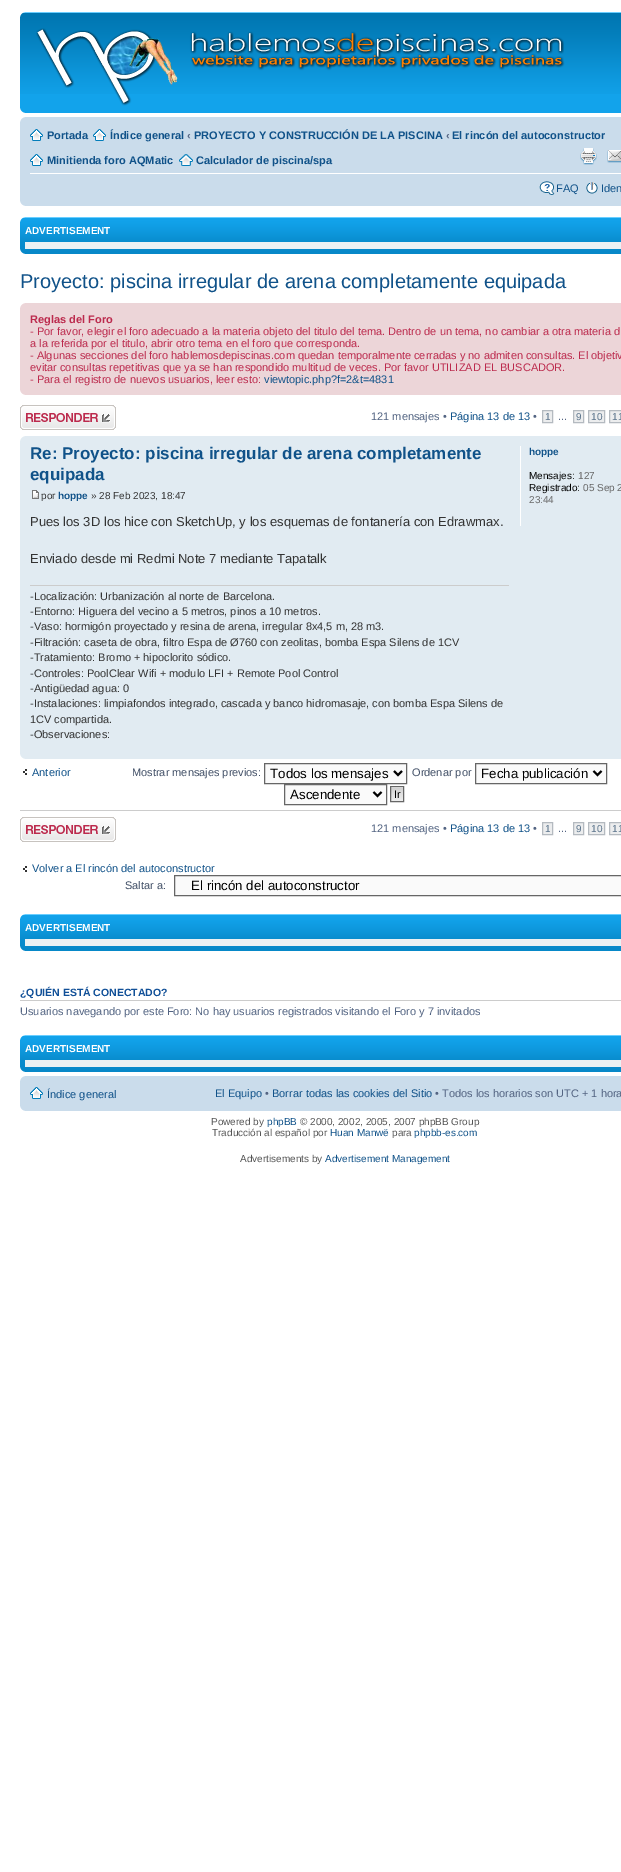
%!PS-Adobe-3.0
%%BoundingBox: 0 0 621 1872
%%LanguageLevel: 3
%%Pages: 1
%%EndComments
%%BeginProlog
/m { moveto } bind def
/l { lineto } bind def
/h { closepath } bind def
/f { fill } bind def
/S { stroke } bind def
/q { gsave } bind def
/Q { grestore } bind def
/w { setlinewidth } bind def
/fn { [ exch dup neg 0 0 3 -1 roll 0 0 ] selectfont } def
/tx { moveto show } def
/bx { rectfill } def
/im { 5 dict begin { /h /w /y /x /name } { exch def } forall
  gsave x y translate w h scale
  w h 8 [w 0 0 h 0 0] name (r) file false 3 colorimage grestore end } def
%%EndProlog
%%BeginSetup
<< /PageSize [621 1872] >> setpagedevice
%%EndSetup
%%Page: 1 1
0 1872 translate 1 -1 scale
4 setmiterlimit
1 setgray
0 0 621 1872 bx
0.071 0.639 0.922 setrgbcolor
20 94 601 19 bx
(image0.raw) 20 12 601 82 im
(image1.raw) 20 12 5 5 im
(image2.raw) 36 28 529 78 im
(image3.raw) 20 108 5 5 im
0.792 0.863 0.922 setrgbcolor
20 117 601 89 bx
(image4.raw) 20 117 5 5 im
1 setgray
30 173 591 1 bx
(image5.raw) 30 129 13 12 im
/LiberationSans-Bold 11 fn
0.063 0.322 0.537 setrgbcolor
(Portada) 47 139 tx
(image5.raw) 93 129 13 12 im
(Índice general) 110 139 tx
0.325 0.392 0.51 setrgbcolor
(‹) 187 139 tx
0.063 0.322 0.537 setrgbcolor
(PROYECTO Y CONSTRUCCIÓN DE LA PISCINA) 194 139 tx
0.325 0.392 0.51 setrgbcolor
(‹) 446 139 tx
0.063 0.322 0.537 setrgbcolor
(El rincón del autoconstructor) 452 139 tx
(image5.raw) 30 154 13 12 im
(Minitienda foro AQMatic) 47 164 tx
(image6.raw) 179 154 14 12 im
(Calculador de piscina/spa) 196 164 tx
(image7.raw) 580 148 17 17 im
(image8.raw) 607 150 14 13 im
(image9.raw) 539 181 16 14 im
/LiberationSans-Regular 11 fn
(FAQ) 556 192 tx
(image10.raw) 586 182 12 12 im
(Iden) 601 192 tx
(image11.raw) 20 201 5 5 im
(image12.raw) 20 217 601 37 im
(image13.raw) 20 217 5 5 im
/LiberationSans-Bold 10 fn
1 setgray
(ADVERTISEMENT) 25 234 tx
0.925 0.945 0.953 setrgbcolor
25 242 596 7 bx
(image14.raw) 20 249 5 5 im
/LiberationSans-Regular 20 fn
0.063 0.322 0.537 setrgbcolor
(Proyecto: piscina irregular de arena completamente equipada) 20 288 tx
0.925 0.835 0.847 setrgbcolor
20 303 601 92 bx
(image15.raw) 20 303 5 5 im
/LiberationSans-Bold 11 fn
0.737 0.165 0.302 setrgbcolor
(Reglas del Foro) 30 323 tx
/LiberationSans-Regular 11 fn
(- Por favor, elegir el foro adecuado a la materia objeto del titulo del tema. Dentro de un tema, no cambiar a otra materia d) 30 335 tx
(a la referida por el titulo, abrir otro tema en el foro que corresponda.) 30 347 tx
(- Algunas secciones del foro hablemosdepiscinas.com quedan temporalmente cerradas y no admiten consultas. El objetiv) 30 359 tx
(evitar consultas repetitivas que ya se han respondido multitud de veces. Por favor UTILIZAD EL BUSCADOR.) 30 371 tx
(- Para el registro de nuevos usuarios, leer esto:) 30 383 tx
0.063 0.322 0.537 setrgbcolor
(viewtopic.php?f=2&t=4831) 264 383 tx
(image16.raw) 20 390 5 5 im
(image17.raw) 20 405 96 25 im
0.325 0.392 0.51 setrgbcolor
(121 mensajes •) 371 420 tx
0.063 0.322 0.537 setrgbcolor
(Página 13 de 13) 450 420 tx
0.325 0.392 0.51 setrgbcolor
(•) 533 420 tx
0.925 0.929 0.933 setrgbcolor
542.5 410.5 m 552.5 410.5 l 552.5 422.5 l 542.5 422.5 l h q f Q
0.706 0.729 0.753 setrgbcolor
S
/LiberationSans-Regular 10 fn
0.361 0.459 0.549 setrgbcolor
(1) 545 420 tx
0.925 0.929 0.933 setrgbcolor
573.5 410.5 m 583.5 410.5 l 583.5 422.5 l 573.5 422.5 l h q f Q
0.706 0.729 0.753 setrgbcolor
S
0.361 0.459 0.549 setrgbcolor
(9) 576 420 tx
0.925 0.929 0.933 setrgbcolor
588.5 410.5 m 604.5 410.5 l 604.5 422.5 l 588.5 422.5 l h q f Q
0.706 0.729 0.753 setrgbcolor
S
0.361 0.459 0.549 setrgbcolor
(10) 591 420 tx
0.925 0.929 0.933 setrgbcolor
609.5 410.5 m 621.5 410.5 l 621.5 422.5 l 609.5 422.5 l h q f Q
0.706 0.729 0.753 setrgbcolor
S
0.361 0.459 0.549 setrgbcolor
(11) 612 420 tx
/LiberationSans-Regular 11 fn
0.325 0.392 0.51 setrgbcolor
(...) 558 420 tx
0.882 0.922 0.949 setrgbcolor
20 436 601 323 bx
(image18.raw) 20 436 5 5 im
/LiberationSans-Bold 17 fn
0.063 0.322 0.537 setrgbcolor
(Re: Proyecto: piscina irregular de arena completamente) 30 459 tx
(equipada) 30 480 tx
(image19.raw) 32 490 7 9 im
/LiberationSans-Regular 10 fn
0.2 setgray
(por) 41 499 tx
/LiberationSans-Bold 10 fn
0.063 0.322 0.537 setrgbcolor
(hoppe) 58 499 tx
/LiberationSans-Regular 10 fn
0.2 setgray
(» 28 Feb 2023, 18:47) 91 499 tx
/LiberationSans-Regular 13 fn
(Pues los 3D los hice con SketchUp, y los esquemas de fontanería con Edrawmax.) 30 526 tx
(Enviado desde mi Redmi Note 7 mediante Tapatalk) 30 563 tx
0.8 setgray
30 585 479 1 bx
/LiberationSans-Regular 11 fn
0.2 setgray
(-Localización: Urbanización al norte de Barcelona.) 30 600 tx
(-Entorno: Higuera del vecino a 5 metros, pinos a 10 metros.) 30 615 tx
(-Vaso: hormigón proyectado y resina de arena, irregular 8x4,5 m, 28 m3.) 30 630 tx
(-Filtración: caseta de obra, filtro Espa de Ø760 con zeolitas, bomba Espa Silens de 1CV) 30 646 tx
(-Tratamiento: Bromo + hipoclorito sódico.) 30 661 tx
(-Controles: PoolClear Wifi + modulo LFI + Remote Pool Control) 30 677 tx
(-Antigüedad agua: 0) 30 692 tx
(-Instalaciones: limpiafondos integrado, cascada y banco hidromasaje, con bomba Espa Silens de) 30 707 tx
(1CV compartida.) 30 723 tx
(-Observaciones:) 30 738 tx
1 setgray
520 446 1 80 bx
/LiberationSans-Bold 10 fn
0.063 0.322 0.537 setrgbcolor
(hoppe) 529 455 tx
/LiberationSans-Regular 10 fn
0 setgray
(Mensajes:) 529 479 tx
0.4 setgray
(127) 578 479 tx
0 setgray
(Registrado:) 529 491 tx
0.4 setgray
(05 Sep 2) 583 491 tx
(23:44) 529 503 tx
(image20.raw) 20 754 5 5 im
(image21.raw) 23 769 4 6 im
/LiberationSans-Regular 11 fn
0.063 0.322 0.537 setrgbcolor
(Anterior) 32 776 tx
0.259 0.314 0.404 setrgbcolor
(Mostrar mensajes previos:) 132 776 tx
0.98 setgray
264.5 763.5 m 406.5 763.5 l 406.5 783.5 l 264.5 783.5 l h q f Q
0.4 setgray
S
0 setgray
2 w
394 771 m 398 775 l 402 771 l S
/LiberationSans-Regular 13.3 fn
(Todos los mensajes) 270 778 tx
/LiberationSans-Regular 11 fn
0.259 0.314 0.404 setrgbcolor
(Ordenar por) 412 776 tx
0.98 setgray
475.5 763.5 m 606.5 763.5 l 606.5 783.5 l 475.5 783.5 l h q f Q
0.4 setgray
1 w
S
0 setgray
2 w
593.5 771 m 597.5 775 l 601.5 771 l S
/LiberationSans-Regular 13.3 fn
(Fecha publicación) 481 778 tx
0.98 setgray
284.5 784.5 m 386.5 784.5 l 386.5 804.5 l 284.5 804.5 l h q f Q
0.4 setgray
1 w
S
0 setgray
2 w
373.5 792 m 377.5 796 l 381.5 792 l S
(Ascendente) 290 799 tx
(image22.raw) 391 787 12 14 im
0.4 setgray
1 w
390.5 786.5 13 15 rectstroke
/LiberationSans-Regular 11 fn
0 setgray
(Ir) 394 798 tx
0.8 setgray
20 810 601 1 bx
(image17.raw) 20 817 96 25 im
0.325 0.392 0.51 setrgbcolor
(121 mensajes •) 371 832 tx
0.063 0.322 0.537 setrgbcolor
(Página 13 de 13) 450 832 tx
0.325 0.392 0.51 setrgbcolor
(•) 533 832 tx
0.925 0.929 0.933 setrgbcolor
542.5 822.5 m 552.5 822.5 l 552.5 834.5 l 542.5 834.5 l h q f Q
0.706 0.729 0.753 setrgbcolor
S
/LiberationSans-Regular 10 fn
0.361 0.459 0.549 setrgbcolor
(1) 545 832 tx
0.925 0.929 0.933 setrgbcolor
573.5 822.5 m 583.5 822.5 l 583.5 834.5 l 573.5 834.5 l h q f Q
0.706 0.729 0.753 setrgbcolor
S
0.361 0.459 0.549 setrgbcolor
(9) 576 832 tx
0.925 0.929 0.933 setrgbcolor
588.5 822.5 m 604.5 822.5 l 604.5 834.5 l 588.5 834.5 l h q f Q
0.706 0.729 0.753 setrgbcolor
S
0.361 0.459 0.549 setrgbcolor
(10) 591 832 tx
0.925 0.929 0.933 setrgbcolor
609.5 822.5 m 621.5 822.5 l 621.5 834.5 l 609.5 834.5 l h q f Q
0.706 0.729 0.753 setrgbcolor
S
0.361 0.459 0.549 setrgbcolor
(11) 612 832 tx
/LiberationSans-Regular 11 fn
0.325 0.392 0.51 setrgbcolor
(...) 558 832 tx
(image21.raw) 23 866 4 6 im
0.063 0.322 0.537 setrgbcolor
(Volver a El rincón del autoconstructor) 32 872 tx
0.259 0.314 0.404 setrgbcolor
(Saltar a:) 125 889 tx
0.98 setgray
174.5 875.5 m 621.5 875.5 l 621.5 895.5 l 174.5 895.5 l h q f Q
0.4 setgray
S
/LiberationSans-Regular 13.3 fn
0 setgray
(El rincón del autoconstructor) 191 890 tx
(image12.raw) 20 914 601 37 im
(image13.raw) 20 914 5 5 im
/LiberationSans-Bold 10 fn
1 setgray
(ADVERTISEMENT) 25 931 tx
0.925 0.945 0.953 setrgbcolor
25 939 596 7 bx
(image14.raw) 20 946 5 5 im
0.8 setgray
20 1000 601 1 bx
/LiberationSans-Bold 10.5 fn
0.067 0.314 0.596 setrgbcolor
(¿QUIÉN ESTÁ CONECTADO?) 20 996 tx
/LiberationSans-Regular 11 fn
0.325 0.392 0.51 setrgbcolor
(Usuarios navegando por este Foro: No hay usuarios registrados visitando el Foro y 7 invitados) 20 1015 tx
(image12.raw) 20 1035 601 37 im
(image13.raw) 20 1035 5 5 im
/LiberationSans-Bold 10 fn
1 setgray
(ADVERTISEMENT) 25 1052 tx
0.925 0.945 0.953 setrgbcolor
25 1060 596 7 bx
(image14.raw) 20 1067 5 5 im
0.792 0.863 0.922 setrgbcolor
20 1076 601 35 bx
(image4.raw) 20 1076 5 5 im
(image5.raw) 30 1087 13 12 im
/LiberationSans-Regular 11 fn
0.063 0.322 0.537 setrgbcolor
(Índice general) 47 1098 tx
(El Equipo) 215 1097 tx
0.325 0.392 0.51 setrgbcolor
(•) 265 1097 tx
0.063 0.322 0.537 setrgbcolor
(Borrar todas las cookies del Sitio) 272 1097 tx
0.325 0.392 0.51 setrgbcolor
(• Todos los horarios son UTC + 1 hora) 435 1097 tx
(image11.raw) 20 1106 5 5 im
/LiberationSans-Regular 10 fn
0.333 setgray
(Powered by) 211 1125 tx
0.063 0.322 0.537 setrgbcolor
(phpBB) 267 1125 tx
0.333 setgray
(© 2000, 2002, 2005, 2007 phpBB Group) 300 1125 tx
(Traducción al español por) 212 1136 tx
0.063 0.322 0.537 setrgbcolor
(Huan Manwë) 330 1136 tx
0.333 setgray
(para) 392 1136 tx
0.063 0.322 0.537 setrgbcolor
(phpbb-es.com) 414 1136 tx
0.333 setgray
(Advertisements by) 240 1162 tx
0.063 0.322 0.537 setrgbcolor
(Advertisement Management) 325 1162 tx
showpage
%%EOF
